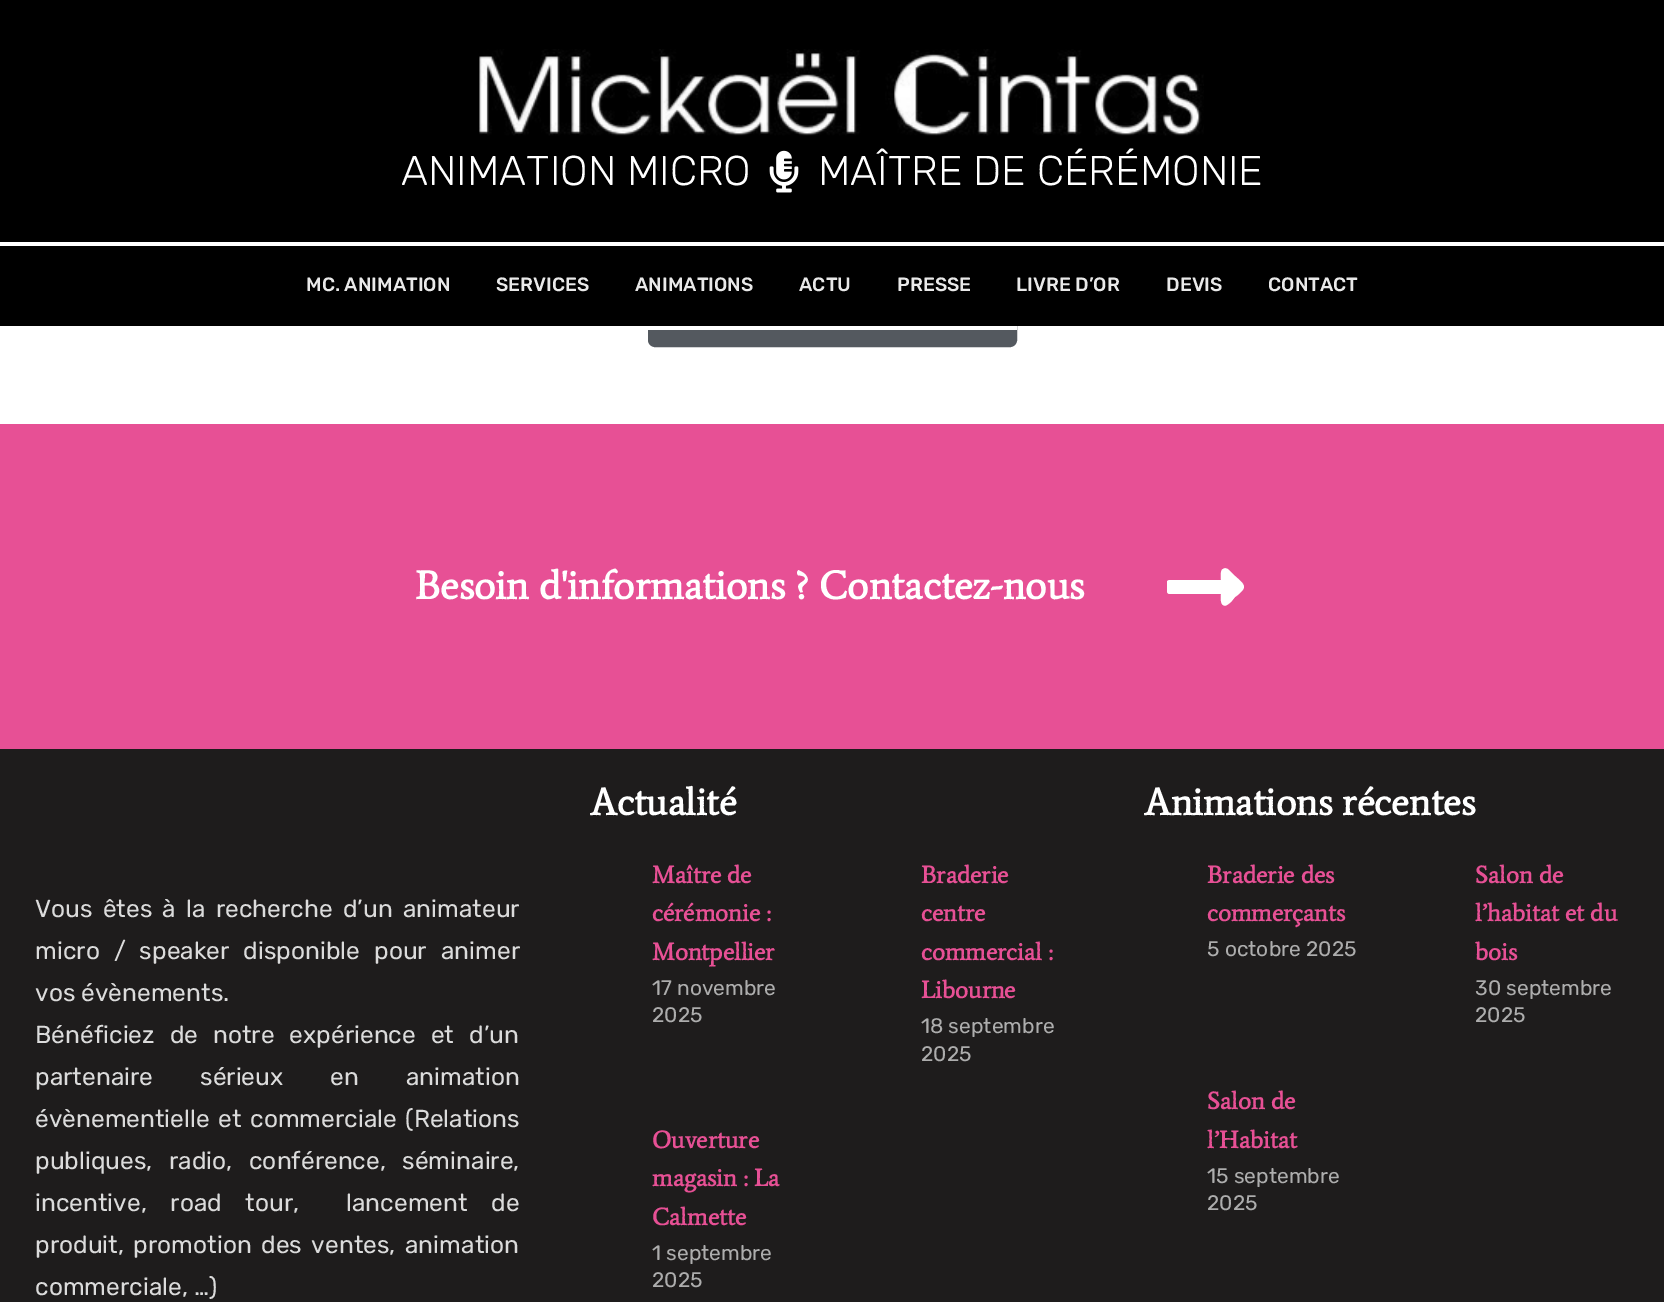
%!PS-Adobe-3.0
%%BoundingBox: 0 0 1664 1302
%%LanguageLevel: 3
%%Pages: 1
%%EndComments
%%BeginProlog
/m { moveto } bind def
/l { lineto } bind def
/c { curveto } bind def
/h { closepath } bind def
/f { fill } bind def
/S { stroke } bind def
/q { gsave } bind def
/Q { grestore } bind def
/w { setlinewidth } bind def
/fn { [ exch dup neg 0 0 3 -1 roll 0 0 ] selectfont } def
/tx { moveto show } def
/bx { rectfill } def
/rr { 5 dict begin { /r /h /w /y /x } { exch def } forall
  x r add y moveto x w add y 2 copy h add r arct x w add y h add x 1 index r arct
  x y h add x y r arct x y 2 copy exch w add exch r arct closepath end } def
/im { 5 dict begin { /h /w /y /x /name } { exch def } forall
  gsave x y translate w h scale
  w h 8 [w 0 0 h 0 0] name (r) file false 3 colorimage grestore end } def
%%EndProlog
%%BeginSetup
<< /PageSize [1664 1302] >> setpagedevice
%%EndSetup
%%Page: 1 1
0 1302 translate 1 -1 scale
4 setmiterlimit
1 setgray
0 0 1664 1302 bx
0.329 0.349 0.373 setrgbcolor
650 265 365 80 5 rr q f Q
4 w
S
0 setgray
0 0 1664 326 bx
(image0.raw) 479 49 725 87 im
/Rubik-Light 41.6 fn
1 setgray
(ANIMATION MICRO) 401 185 tx
(image1.raw) 769 150 30 43 im
(MAÎTRE DE CÉRÉMONIE) 818 185 tx
0 242 1664 4 bx
648 326 369 4 bx
/Rubik-Medium 19.25 fn
0.914 setgray
(MC. ANIMATION) 306 291 tx
(SERVICES) 496 291 tx
(ANIMATIONS) 635 291 tx
(ACTU) 799 291 tx
(PRESSE) 897 291 tx
(LIVRE D’OR) 1016 291 tx
(DEVIS) 1166 291 tx
(CONTACT) 1268 291 tx
0.906 0.314 0.584 setrgbcolor
0 424 1664 325 bx
/Average-Bold 40.25 fn
1 setgray
(Besoin d'informations ? Contactez-nous) 415 599 tx
1221 580 m 1221 577 1220 570 1223 569 c 1226 567 1228 569 1231 572 c 1235 576 l 1238 579 1244 583 1244 587 c 1244 590 1238 595 1235 597 c 1231 602 l 1228 604 1226 607 1223 605 c 1220 603 1221 597 1221 594 c 1170 594 l 1168 594 1167 593 1167 591 c 1167 582 l 1167 581 1168 580 1170 580 c h f
0.118 0.11 0.11 setrgbcolor
0 749 1664 553 bx
/Rubik-Regular 24.5 fn
0.859 setgray
35 917 m 4.25 0 32 (Vous êtes à la recherche d’un animateur) widthshow
35 959 m 8 0 32 (micro / speaker disponible pour animer) widthshow
(vos évènements.) 35 1001 tx
35 1043 m 9 0 32 (Bénéficiez de notre expérience et d’un) widthshow
35 1085 m 41 0 32 (partenaire sérieux en animation) widthshow
35 1127 m 2.5 0 32 (évènementielle et commerciale \(Relations) widthshow
35 1169 m 10.5 0 32 (publiques, radio, conférence, séminaire,) widthshow
35 1211 m 17.5 0 32 (incentive, road tour,  lancement de) widthshow
35 1253 m 3.5 0 32 (produit, promotion des ventes, animation) widthshow
(commerciale, …\)) 35 1295 tx
/Average-Bold 38.5 fn
1 setgray
(Actualité) 590 815 tx
/Average-Bold 24.5 fn
0.906 0.314 0.584 setrgbcolor
(Maître de) 652 883 tx
(cérémonie :) 652 921 tx
(Montpellier) 652 960 tx
/Rubik-Regular 21 fn
0.678 setgray
(17 novembre) 652 995 tx
(2025) 652 1022 tx
/Average-Bold 24.5 fn
0.906 0.314 0.584 setrgbcolor
(Braderie) 921 883 tx
(centre) 921 921 tx
(commercial :) 921 960 tx
(Libourne) 921 998 tx
/Rubik-Regular 21 fn
0.678 setgray
(18 septembre) 921 1033 tx
(2025) 921 1061 tx
/Average-Bold 24.5 fn
0.906 0.314 0.584 setrgbcolor
(Ouverture) 652 1148 tx
(magasin : La) 652 1186 tx
(Calmette) 652 1225 tx
/Rubik-Regular 21 fn
0.678 setgray
(1 septembre) 652 1260 tx
(2025) 652 1287 tx
/Average-Bold 38.5 fn
1 setgray
(Animations récentes) 1144 815 tx
/Average-Bold 24.5 fn
0.906 0.314 0.584 setrgbcolor
(Braderie des) 1207 883 tx
(commerçants) 1207 921 tx
/Rubik-Regular 21 fn
0.678 setgray
(5 octobre 2025) 1207 956 tx
/Average-Bold 24.5 fn
0.906 0.314 0.584 setrgbcolor
(Salon de) 1475 883 tx
(l’habitat et du) 1475 921 tx
(bois) 1475 960 tx
/Rubik-Regular 21 fn
0.678 setgray
(30 septembre) 1475 995 tx
(2025) 1475 1022 tx
/Average-Bold 24.5 fn
0.906 0.314 0.584 setrgbcolor
(Salon de) 1207 1109 tx
(l’Habitat) 1207 1148 tx
/Rubik-Regular 21 fn
0.678 setgray
(15 septembre) 1207 1183 tx
(2025) 1207 1210 tx
showpage
%%EOF
